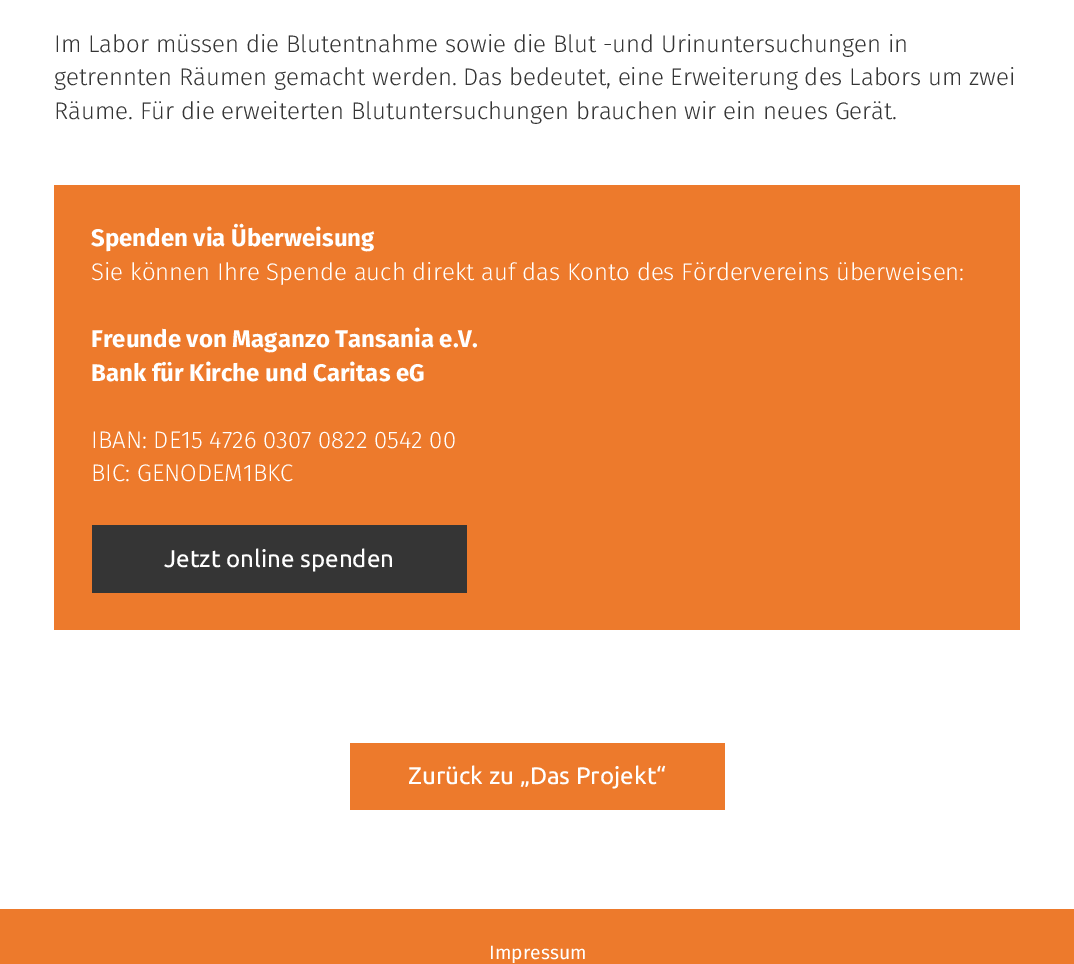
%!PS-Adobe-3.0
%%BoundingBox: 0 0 1074 964
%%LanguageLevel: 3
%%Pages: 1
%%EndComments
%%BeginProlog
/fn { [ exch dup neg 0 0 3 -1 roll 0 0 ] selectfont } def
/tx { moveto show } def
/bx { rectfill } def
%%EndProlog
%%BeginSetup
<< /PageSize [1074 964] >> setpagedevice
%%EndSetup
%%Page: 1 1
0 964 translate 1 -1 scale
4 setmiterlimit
1 setgray
0 0 1074 964 bx
/FiraSans-Light 24 fn
0.208 setgray
(Im Labor müssen die Blutentnahme sowie die Blut -und Urinuntersuchungen in) 54 52 tx
(getrennten Räumen gemacht werden. Das bedeutet, eine Erweiterung des Labors um zwei) 54 85 tx
(Räume. Für die erweiterten Blutuntersuchungen brauchen wir ein neues Gerät.) 54 119 tx
0.929 0.478 0.173 setrgbcolor
54 185 966 445 bx
/FiraSans-Bold 24 fn
1 setgray
(Spenden via Überweisung) 91 246 tx
/FiraSans-Light 24 fn
(Sie können Ihre Spende auch direkt auf das Konto des Fördervereins überweisen:) 91 280 tx
/FiraSans-Bold 24 fn
(Freunde von Maganzo Tansania e.V.) 91 347 tx
(Bank für Kirche und Caritas eG) 91 381 tx
/FiraSans-Light 24 fn
(IBAN: DE15 4726 0307 0822 0542 00) 91 448 tx
(BIC: GENODEM1BKC) 91 481 tx
0.208 setgray
92 525 375 68 bx
/Ubuntu-Medium 24 fn
1 setgray
(Jetzt online spenden) 164 567 tx
0.929 0.478 0.173 setrgbcolor
350 743 375 67 bx
1 setgray
(Zurück zu „Das Projekt“) 408 784 tx
0.929 0.478 0.173 setrgbcolor
0 909 1074 55 bx
/FiraSans-Regular 19.25 fn
1 setgray
(Impressum) 489 959 tx
showpage
%%EOF
